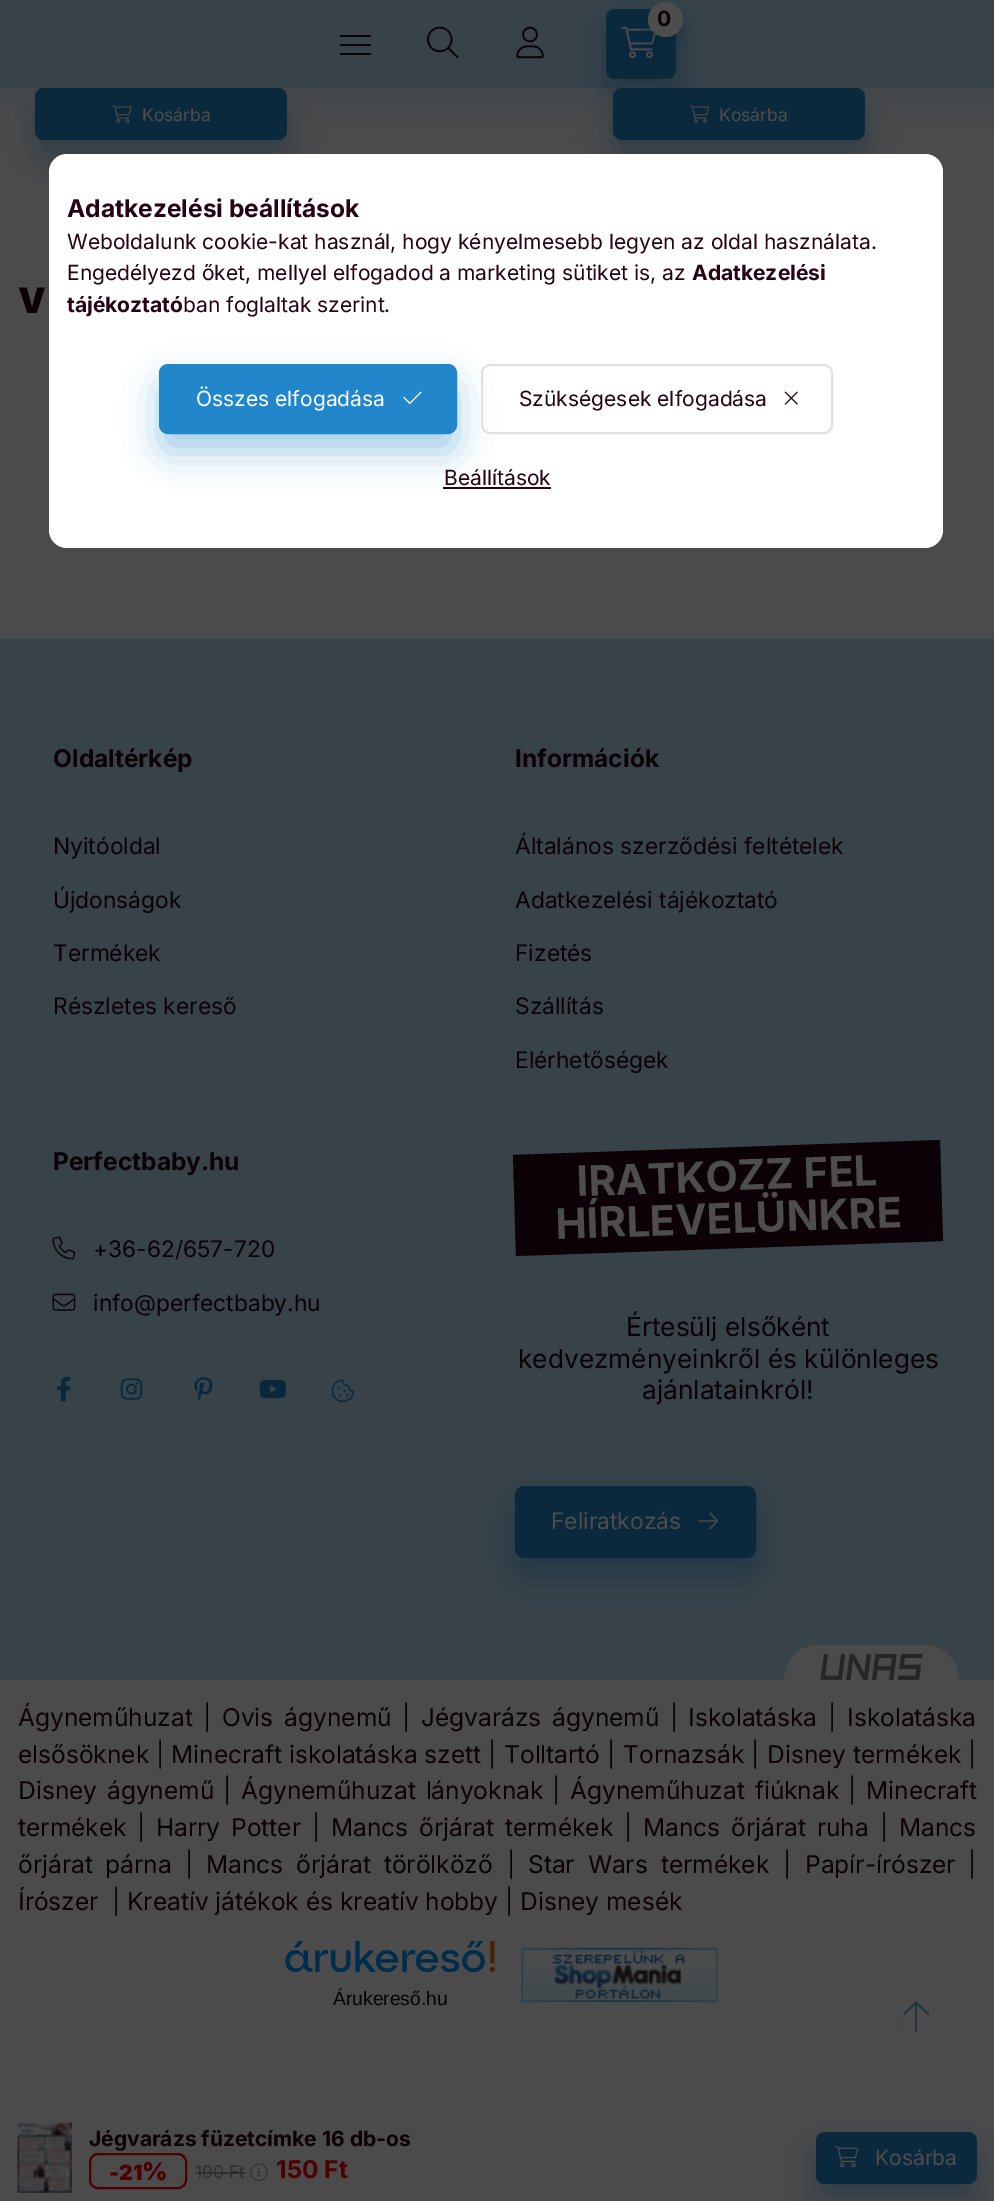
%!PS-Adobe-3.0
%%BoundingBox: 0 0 994 2201
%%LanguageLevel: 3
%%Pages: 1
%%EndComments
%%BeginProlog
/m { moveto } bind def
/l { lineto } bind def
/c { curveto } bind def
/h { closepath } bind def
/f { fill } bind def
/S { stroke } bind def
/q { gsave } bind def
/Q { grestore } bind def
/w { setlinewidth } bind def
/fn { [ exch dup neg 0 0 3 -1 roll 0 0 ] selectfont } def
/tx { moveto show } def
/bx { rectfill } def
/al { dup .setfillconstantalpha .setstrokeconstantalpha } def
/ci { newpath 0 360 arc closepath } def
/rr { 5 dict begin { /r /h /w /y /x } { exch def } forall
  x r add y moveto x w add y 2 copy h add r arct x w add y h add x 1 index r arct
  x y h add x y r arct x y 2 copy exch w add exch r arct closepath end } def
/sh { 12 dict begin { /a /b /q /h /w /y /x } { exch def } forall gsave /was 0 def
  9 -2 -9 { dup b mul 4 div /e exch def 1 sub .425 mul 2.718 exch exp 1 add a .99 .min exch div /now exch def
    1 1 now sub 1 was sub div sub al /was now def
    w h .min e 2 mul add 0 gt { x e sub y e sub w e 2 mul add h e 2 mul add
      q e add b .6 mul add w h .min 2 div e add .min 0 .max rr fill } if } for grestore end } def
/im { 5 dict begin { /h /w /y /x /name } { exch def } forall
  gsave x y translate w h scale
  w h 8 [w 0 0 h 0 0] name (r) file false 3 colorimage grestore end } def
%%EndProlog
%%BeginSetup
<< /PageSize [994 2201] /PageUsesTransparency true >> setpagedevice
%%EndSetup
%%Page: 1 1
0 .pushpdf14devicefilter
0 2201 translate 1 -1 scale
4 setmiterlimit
0.294 setgray
0 0 994 2201 bx
0.039 0.161 0.239 setrgbcolor
35 105 252 53 9 17.5 0.4 sh
35 88 252 52 9 rr f
(image3.raw) 112 105 20 18 im
613 105 252 53 9 17.5 0.4 sh
613 88 252 52 9 rr f
(image4.raw) 689 105 21 18 im
0 0 994 88 0 26 0.2 sh
0.22 0.259 0.286 setrgbcolor
0 0 994 88 bx
0.039 0.161 0.239 setrgbcolor
606 26 70 70 9 17.5 0.4 sh
606 9 70 70 9 rr f
(image0.raw) 621 26 35 33 im
648 11 35 35 17.5 9 0.4 sh
0.302 setgray
665.5 19.5 17.5 ci f
/Inter-Bold 21 fn
0.043 0.004 0.024 setrgbcolor
(0) 657 26 tx
340 35 31 2 bx
340 44 31 2 bx
340 53 31 2 bx
(image1.raw) 427 26 32 33 im
(image2.raw) 516 26 28 33 im
/Inter-Regular 17.5 fn
0.302 setgray
(Kosárba) 142 121 tx
(Kosárba) 719 121 tx
/Inter-Black 35 fn
0.043 0.004 0.024 setrgbcolor
(V) 18 313 tx
(image5.raw) 17 2122 55 71 im
/Inter-Bold 21 fn
(Jégvarázs füzetcímke 16 db-os) 89 2146 tx
0.302 0 0 setrgbcolor
2 w
90 2154 96 34 8 rr S
/Inter-Black 21 fn
(-21) 109 2180 tx
/Inter-Black 24.5 fn
(%) 142 2180 tx
/Inter-Regular 17.5 fn
0.18 setgray
(190 Ft) 195 2178 tx
196 2172 49 2 bx
(image6.raw) 250 2163 18 18 im
/Inter-Bold 24.5 fn
0.302 0 0 setrgbcolor
(150 Ft) 276 2178 tx
0.039 0.161 0.239 setrgbcolor
816 2149 161 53 9 17.5 0.4 sh
816 2132 161 52 9 rr f
(image7.raw) 834 2146 25 22 im
/Inter-Regular 21 fn
0.302 setgray
(Kosárba) 875 2165 tx
0.22 0.259 0.286 setrgbcolor
0 639 994 1041 bx
/Inter-Bold 24.5 fn
0.043 0.004 0.024 setrgbcolor
(Oldaltérkép) 53 767 tx
/Inter-Regular 22.75 fn
(Nyitóoldal) 53 854 tx
(Újdonságok) 53 908 tx
(Termékek) 53 961 tx
(Részletes kereső) 53 1014 tx
/Inter-Bold 24.5 fn
(Információk) 515 767 tx
/Inter-Regular 22.75 fn
(Általános szerződési feltételek) 515 854 tx
(Adatkezelési tájékoztató) 515 908 tx
(Fizetés) 515 961 tx
(Szállítás) 515 1014 tx
(Elérhetőségek) 515 1068 tx
/Inter-Bold 24.5 fn
(Perfectbaby.hu) 53 1170 tx
(image8.raw) 52 1236 24 24 im
/Inter-Regular 22.75 fn
(+36-62/657-720) 93 1257 tx
(image9.raw) 52 1293 24 18 im
(info@perfectbaby.hu) 93 1311 tx
(image10.raw) 57 1376 14 26 im
(image11.raw) 120 1378 23 22 im
(image12.raw) 194 1377 19 24 im
(image13.raw) 259 1379 27 20 im
(image14.raw) 331 1379 24 24 im
513 1155 m 940 1140 l 943 1241 l 516 1256 l h f
/Inter-Bold 42 fn
0.302 setgray
q 577 1196 translate -2 rotate 0 0 m (IRATKOZZ FEL) show Q
q 556 1239 translate -2 rotate 0 0 m (HÍRLEVELÜNKRE) show Q
/Inter-Regular 26.25 fn
0.043 0.004 0.024 setrgbcolor
(Értesülj elsőként) 626 1336 tx
(kedvezményeinkről és különleges) 518 1368 tx
(ajánlatainkról!) 642 1399 tx
0.039 0.161 0.239 setrgbcolor
515 1503 241 72 9 17.5 0.4 sh
516 1487 239 70 8 rr q f Q
S
/Inter-Regular 22.75 fn
0.302 setgray
(Feliratkozás) 551 1529 tx
(image15.raw) 698 1512 21 18 im
0.294 setgray
819 1645 m 924 1645 l 943.5 1645 959 1660.5 959 1680 c 784 1680 l 784 1660.5 799.5 1645 819 1645 c h f
(image16.raw) 820 1654 103 26 im
/Inter-Regular 24.5 fn
0.043 0.004 0.024 setrgbcolor
(Ágyneműhuzat) 18 1726 tx
(|) 203 1726 tx
222 1726 m 4 0 32 (Ovis ágynemű) widthshow
(|) 402 1726 tx
421 1726 m 4 0 32 (Jégvarázs ágynemű) widthshow
(|) 670 1726 tx
(Iskolatáska) 688 1726 tx
(|) 828 1726 tx
(Iskolatáska) 847 1726 tx
(elsősöknek |) 18 1763 tx
(Minecraft iskolatáska szett) 171 1763 tx
(|) 488 1763 tx
(Tolltartó |) 504 1763 tx
(Tornazsák |) 623 1763 tx
(Disney termékek |) 767 1763 tx
18 1799 m 3 0 32 (Disney ágynemű) widthshow
(|) 223 1799 tx
241 1799 m 3 0 32 (Ágyneműhuzat lányoknak) widthshow
(|) 552 1799 tx
570 1799 m 3 0 32 (Ágyneműhuzat fiúknak) widthshow
(|) 848 1799 tx
(Minecraft) 866 1799 tx
(termékek) 18 1836 tx
(|) 137 1836 tx
156 1836 m 4 0 32 (Harry Potter) widthshow
(|) 312 1836 tx
331 1836 m 4 0 32 (Mancs őrjárat termékek) widthshow
(|) 624 1836 tx
643 1836 m 4 0 32 (Mancs őrjárat ruha) widthshow
(|) 880 1836 tx
(Mancs) 899 1836 tx
18 1873 m 6 0 32 (őrjárat párna) widthshow
(|) 185 1873 tx
206 1873 m 6 0 32 (Mancs őrjárat törölköző) widthshow
(|) 507 1873 tx
528 1873 m 6 0 32 (Star Wars termékek) widthshow
(|) 783 1873 tx
(Papír-írószer) 805 1873 tx
(|) 968 1873 tx
(Írószer) 18 1910 tx
(| Kreatív játékok és kreatív hobby | Disney mesék) 112 1910 tx
(image17.raw) 285 1941 210 31 im
/LiberationSans-Regular 19.25 fn
0 setgray
(Árukereső.hu) 333 2005 tx
(image18.raw) 521 1947 197 55 im
1 setgray
49 154 894 394 18 rr f
/Inter-Bold 24.5 fn
0.149 0.016 0.075 setrgbcolor
(Adatkezelési beállítások) 67 217 tx
/Inter-Regular 21 fn
(Weboldalunk cookie-kat használ, hogy kényelmesebb legyen az oldal használata.) 67 249 tx
(Engedélyezd őket, mellyel elfogadod a marketing sütiket is, az) 67 280 tx
/Inter-Bold 21 fn
(Adatkezelési) 692 280 tx
(tájékoztató) 67 312 tx
/Inter-Regular 21 fn
(ban foglaltak szerint.) 183 312 tx
0.129 0.529 0.792 setrgbcolor
159 382 298 70 9 17.5 0.4 sh
160 365 296 68 8 rr q f Q
S
1 setgray
(Összes elfogadása) 196 406 tx
(image19.raw) 403 391 19 13 im
0.882 setgray
482 365 350 68 8 rr S
0.149 0.016 0.075 setrgbcolor
(Szükségesek elfogadása) 519 406 tx
(image20.raw) 784 391 14 14 im
(Beállítások) 444 485 tx
443 487 108 2 bx
(image21.raw) 903 2001 27 32 im
.poppdf14devicefilter showpage
%%EOF
